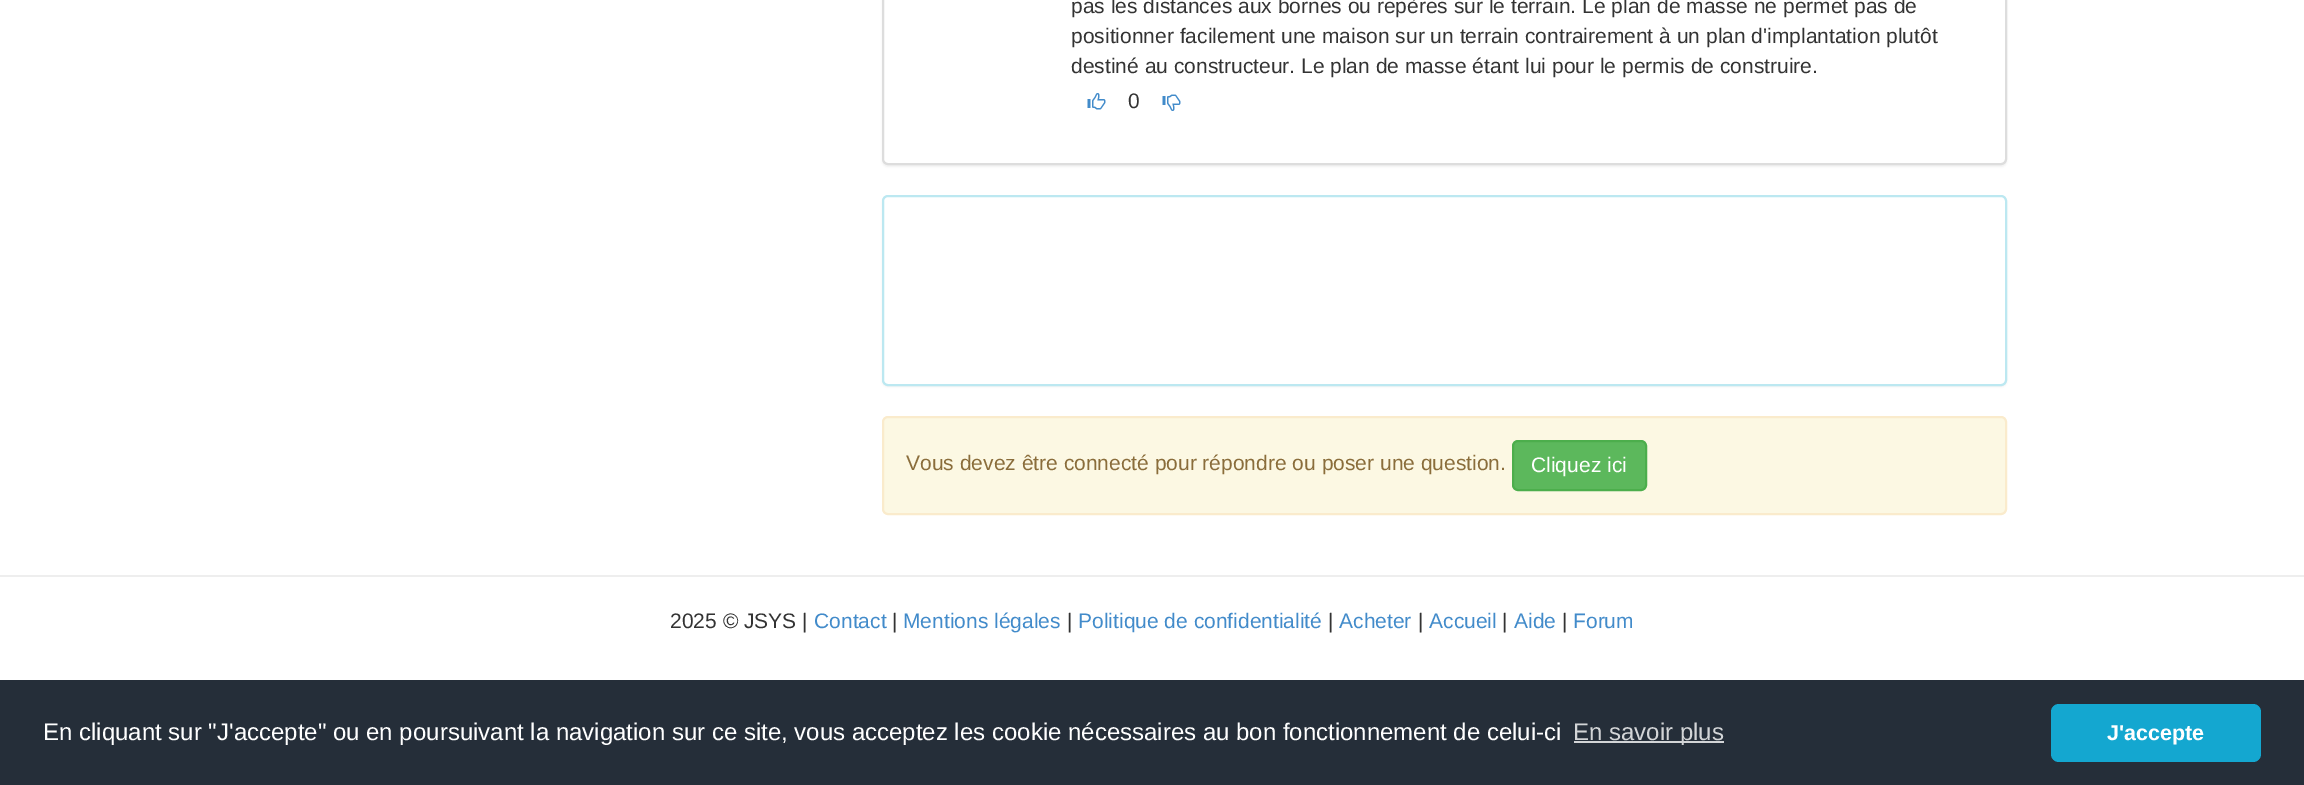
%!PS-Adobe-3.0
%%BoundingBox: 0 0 2304 785
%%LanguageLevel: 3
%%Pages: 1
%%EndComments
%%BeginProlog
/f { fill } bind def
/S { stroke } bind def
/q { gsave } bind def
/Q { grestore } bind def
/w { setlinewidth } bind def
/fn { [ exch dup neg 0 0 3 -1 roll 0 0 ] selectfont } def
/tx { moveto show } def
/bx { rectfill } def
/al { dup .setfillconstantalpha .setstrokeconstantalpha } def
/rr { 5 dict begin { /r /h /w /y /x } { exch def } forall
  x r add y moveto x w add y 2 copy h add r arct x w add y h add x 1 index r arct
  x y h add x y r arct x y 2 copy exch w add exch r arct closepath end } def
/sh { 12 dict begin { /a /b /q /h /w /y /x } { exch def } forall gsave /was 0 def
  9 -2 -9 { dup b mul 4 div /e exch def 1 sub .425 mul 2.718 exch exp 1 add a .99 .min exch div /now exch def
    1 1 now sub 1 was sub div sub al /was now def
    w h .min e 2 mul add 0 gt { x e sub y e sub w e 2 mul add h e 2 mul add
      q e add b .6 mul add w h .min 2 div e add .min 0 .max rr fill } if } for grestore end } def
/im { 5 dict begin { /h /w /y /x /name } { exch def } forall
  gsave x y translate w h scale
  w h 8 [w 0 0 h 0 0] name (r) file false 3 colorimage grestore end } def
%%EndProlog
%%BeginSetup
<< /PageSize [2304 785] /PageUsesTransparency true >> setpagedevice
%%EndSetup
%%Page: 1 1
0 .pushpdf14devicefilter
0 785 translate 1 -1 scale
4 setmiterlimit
1 setgray
0 0 2304 785 bx
0 setgray
882 -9 1125 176 6 1 0.05 sh
1 setgray
883 -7 1123 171 5 rr q f Q
0.867 setgray
2 w
S
/LiberationSans-Regular 21 fn
0.2 setgray
(pas les distances aux bornes ou repères sur le terrain. Le plan de masse ne permet pas de) 1071 13 tx
(positionner facilement une maison sur un terrain contrairement à un plan d'implantation plutôt) 1071 43 tx
(destiné au constructeur. Le plan de masse étant lui pour le permis de construire.) 1071 73 tx
(image0.raw) 1087 93 19 17 im
(0) 1128 108 tx
(image1.raw) 1162 94 19 17 im
0 setgray
882 197 1125 190 6 1 0.05 sh
1 setgray
883 196 1123 189 5 rr q f Q
0.737 0.91 0.945 setrgbcolor
S
0.988 0.973 0.89 setrgbcolor
883 417 1123 97 5 rr q f Q
0.98 0.922 0.8 setrgbcolor
S
0.541 0.427 0.231 setrgbcolor
(Vous devez être connecté pour répondre ou poser une question.) 906 470 tx
0.361 0.722 0.361 setrgbcolor
1513 441 133 49 5 rr q f Q
0.298 0.682 0.298 setrgbcolor
S
1 setgray
(Cliquez ici) 1531 472 tx
0.933 setgray
0 575 2304 2 bx
0.2 setgray
(2025 © JSYS |) 670 628 tx
0.259 0.545 0.792 setrgbcolor
(Contact) 814 628 tx
0.2 setgray
(|) 892 628 tx
0.259 0.545 0.792 setrgbcolor
(Mentions légales) 903 628 tx
0.2 setgray
(|) 1067 628 tx
0.259 0.545 0.792 setrgbcolor
(Politique de confidentialité) 1078 628 tx
0.2 setgray
(|) 1328 628 tx
0.259 0.545 0.792 setrgbcolor
(Acheter) 1339 628 tx
0.2 setgray
(|) 1418 628 tx
0.259 0.545 0.792 setrgbcolor
(Accueil) 1429 628 tx
0.2 setgray
(|) 1502 628 tx
0.259 0.545 0.792 setrgbcolor
(Aide) 1514 628 tx
0.2 setgray
(|) 1562 628 tx
0.259 0.545 0.792 setrgbcolor
(Forum) 1573 628 tx
0.145 0.18 0.224 setrgbcolor
0 680 2304 105 bx
/LiberationSans-Regular 24 fn
1 setgray
(En cliquant sur "J'accepte" ou en poursuivant la navigation sur ce site, vous acceptez les cookie nécessaires au bon fonctionnement de celui-ci) 43 740 tx
0.827 0.835 0.843 setrgbcolor
1574 741 150 2 bx
(En savoir plus) 1573 740 tx
0.078 0.655 0.816 setrgbcolor
2051 704 210 58 8 rr f
/LiberationSans-Bold 21.5 fn
1 setgray
(J'accepte) 2107 740 tx
.poppdf14devicefilter showpage
%%EOF
